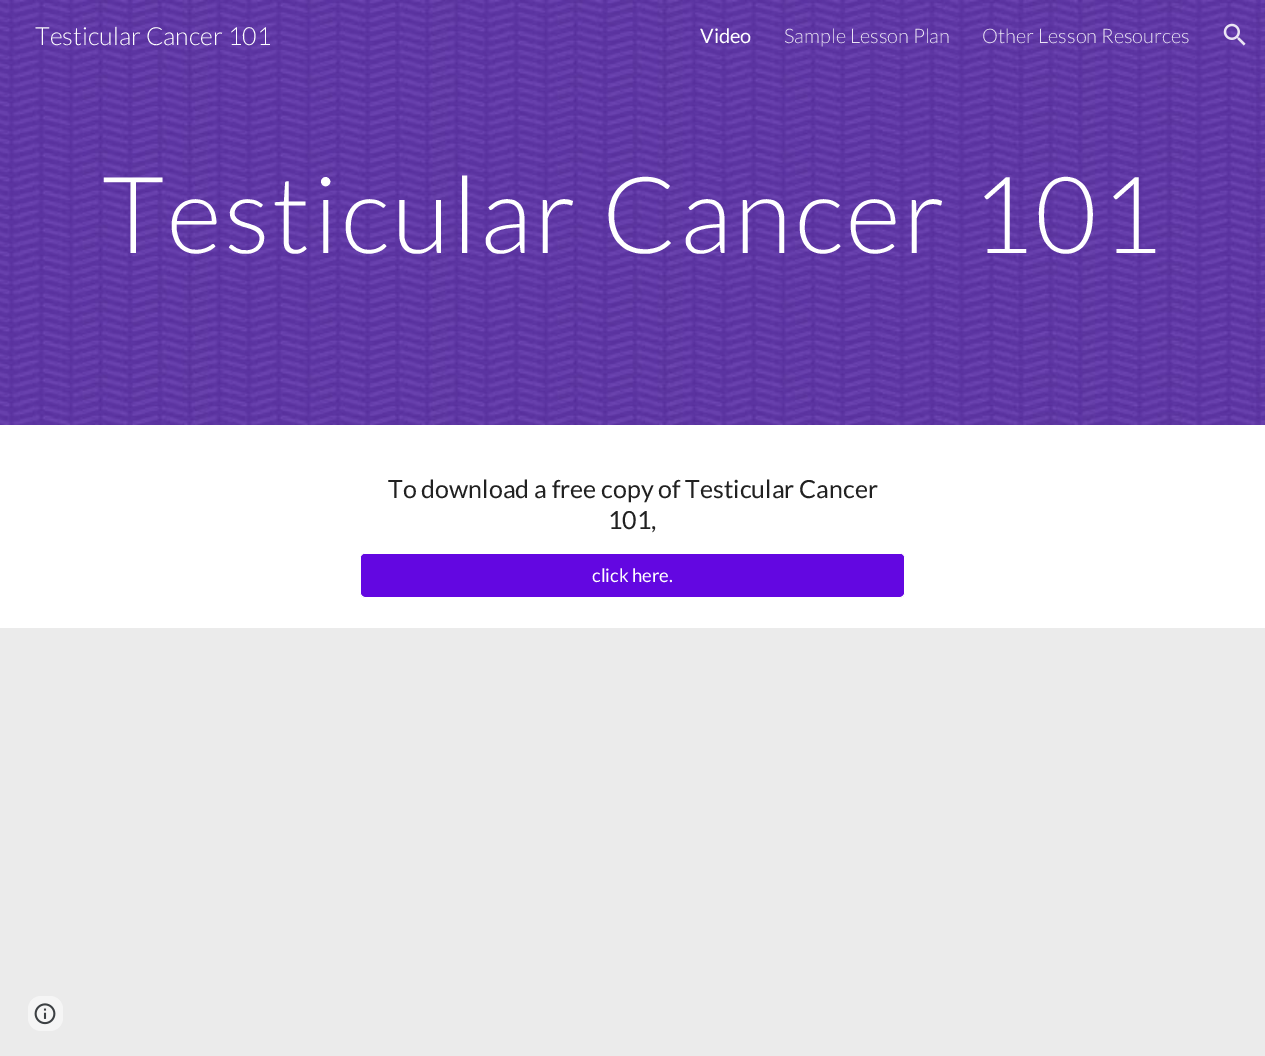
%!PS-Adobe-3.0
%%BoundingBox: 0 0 1265 1056
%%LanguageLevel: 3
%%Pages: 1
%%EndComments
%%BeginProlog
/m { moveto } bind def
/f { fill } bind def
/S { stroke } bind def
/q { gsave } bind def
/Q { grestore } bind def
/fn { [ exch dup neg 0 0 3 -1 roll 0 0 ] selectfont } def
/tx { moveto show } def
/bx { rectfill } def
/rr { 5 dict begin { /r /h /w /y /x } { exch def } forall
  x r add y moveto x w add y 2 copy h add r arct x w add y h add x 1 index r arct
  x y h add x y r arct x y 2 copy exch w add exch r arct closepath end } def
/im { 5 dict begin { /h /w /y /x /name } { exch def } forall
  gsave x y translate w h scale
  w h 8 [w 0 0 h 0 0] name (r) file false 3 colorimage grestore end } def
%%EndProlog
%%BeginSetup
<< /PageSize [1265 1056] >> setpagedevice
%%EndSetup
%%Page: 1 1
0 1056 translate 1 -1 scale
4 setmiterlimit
1 setgray
0 0 1265 1056 bx
(image1.raw) 0 0 1265 425 im
/Lato-Light 25 fn
(Testicular Cancer 101) 35 45 tx
/Lato-Regular 20 fn
(Video) 700 43 tx
/Lato-Light 20 fn
0.918 0.898 0.953 setrgbcolor
(Sample Lesson Plan) 784 43 tx
(Other Lesson Resources) 982 43 tx
(image0.raw) 1223 23 23 23 im
/Lato-Light 106.75 fn
1 setgray
102 253 m 2.5 0 (Testicular Cancer 101) ashow
/Lato-Regular 25 fn
0.129 setgray
(To download a free copy of Testicular Cancer) 388 498 tx
(101,) 608 529 tx
0.388 0.027 0.882 setrgbcolor
360.5 553.5 544 44 4.5 rr q f Q
1 setgray
S
0.388 0.027 0.882 setrgbcolor
361 554 543 42 4 rr f
/Lato-Regular 18.5 fn
1 setgray
(click here.) 592 582 tx
0.922 setgray
0 628 1265 428 bx
0.961 setgray
28 996 35 35 13 rr f
(image2.raw) 34 1003 22 22 im
showpage
%%EOF
